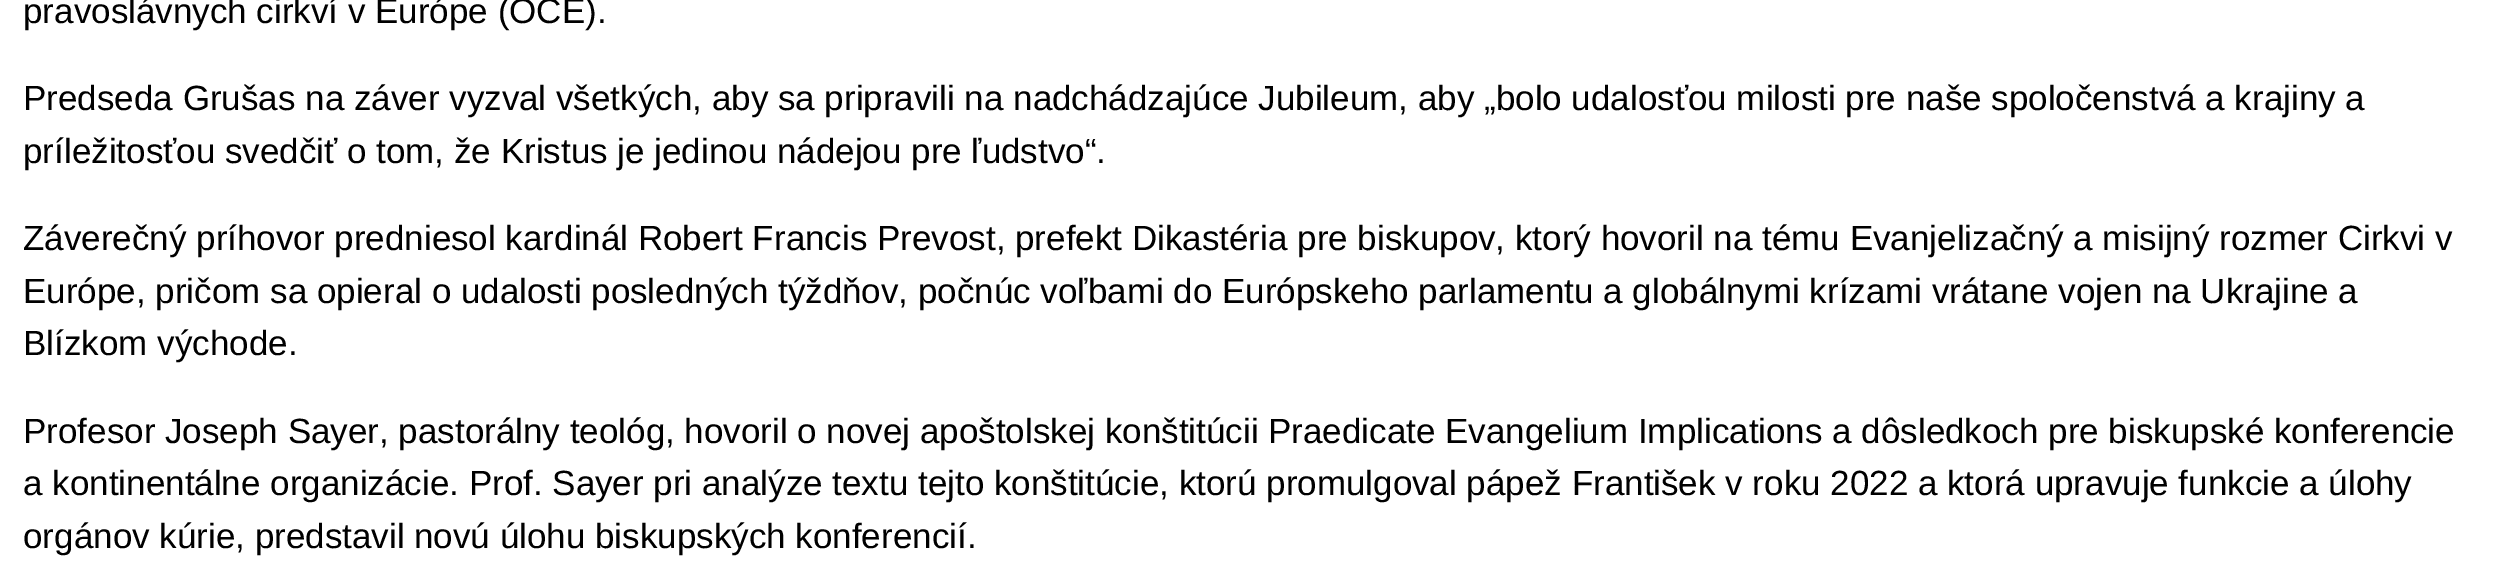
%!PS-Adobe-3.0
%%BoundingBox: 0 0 2495 568
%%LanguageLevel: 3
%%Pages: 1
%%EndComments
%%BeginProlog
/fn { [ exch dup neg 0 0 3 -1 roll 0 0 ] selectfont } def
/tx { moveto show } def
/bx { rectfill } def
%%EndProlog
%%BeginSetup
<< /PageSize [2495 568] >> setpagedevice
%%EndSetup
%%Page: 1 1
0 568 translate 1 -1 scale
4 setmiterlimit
1 setgray
0 0 2495 568 bx
/LiberationSans-Regular 35 fn
0 setgray
(pravoslávnych cirkví v Európe \(OCE\).) 23 23 tx
(Predseda Grušas na záver vyzval všetkých, aby sa pripravili na nadchádzajúce Jubileum, aby „bolo udalosťou milosti pre naše spoločenstvá a krajiny a) 23 110 tx
(príležitosťou svedčiť o tom, že Kristus je jedinou nádejou pre ľudstvo“.) 23 163 tx
(Záverečný príhovor predniesol kardinál Robert Francis Prevost, prefekt Dikastéria pre biskupov, ktorý hovoril na tému Evanjelizačný a misijný rozmer Cirkvi v) 23 250 tx
(Európe, pričom sa opieral o udalosti posledných týždňov, počnúc voľbami do Európskeho parlamentu a globálnymi krízami vrátane vojen na Ukrajine a) 23 303 tx
(Blízkom východe.) 23 355 tx
(Profesor Joseph Sayer, pastorálny teológ, hovoril o novej apoštolskej konštitúcii Praedicate Evangelium Implications a dôsledkoch pre biskupské konferencie) 23 443 tx
(a kontinentálne organizácie. Prof. Sayer pri analýze textu tejto konštitúcie, ktorú promulgoval pápež František v roku 2022 a ktorá upravuje funkcie a úlohy) 23 495 tx
(orgánov kúrie, predstavil novú úlohu biskupských konferencií.) 23 548 tx
showpage
%%EOF
